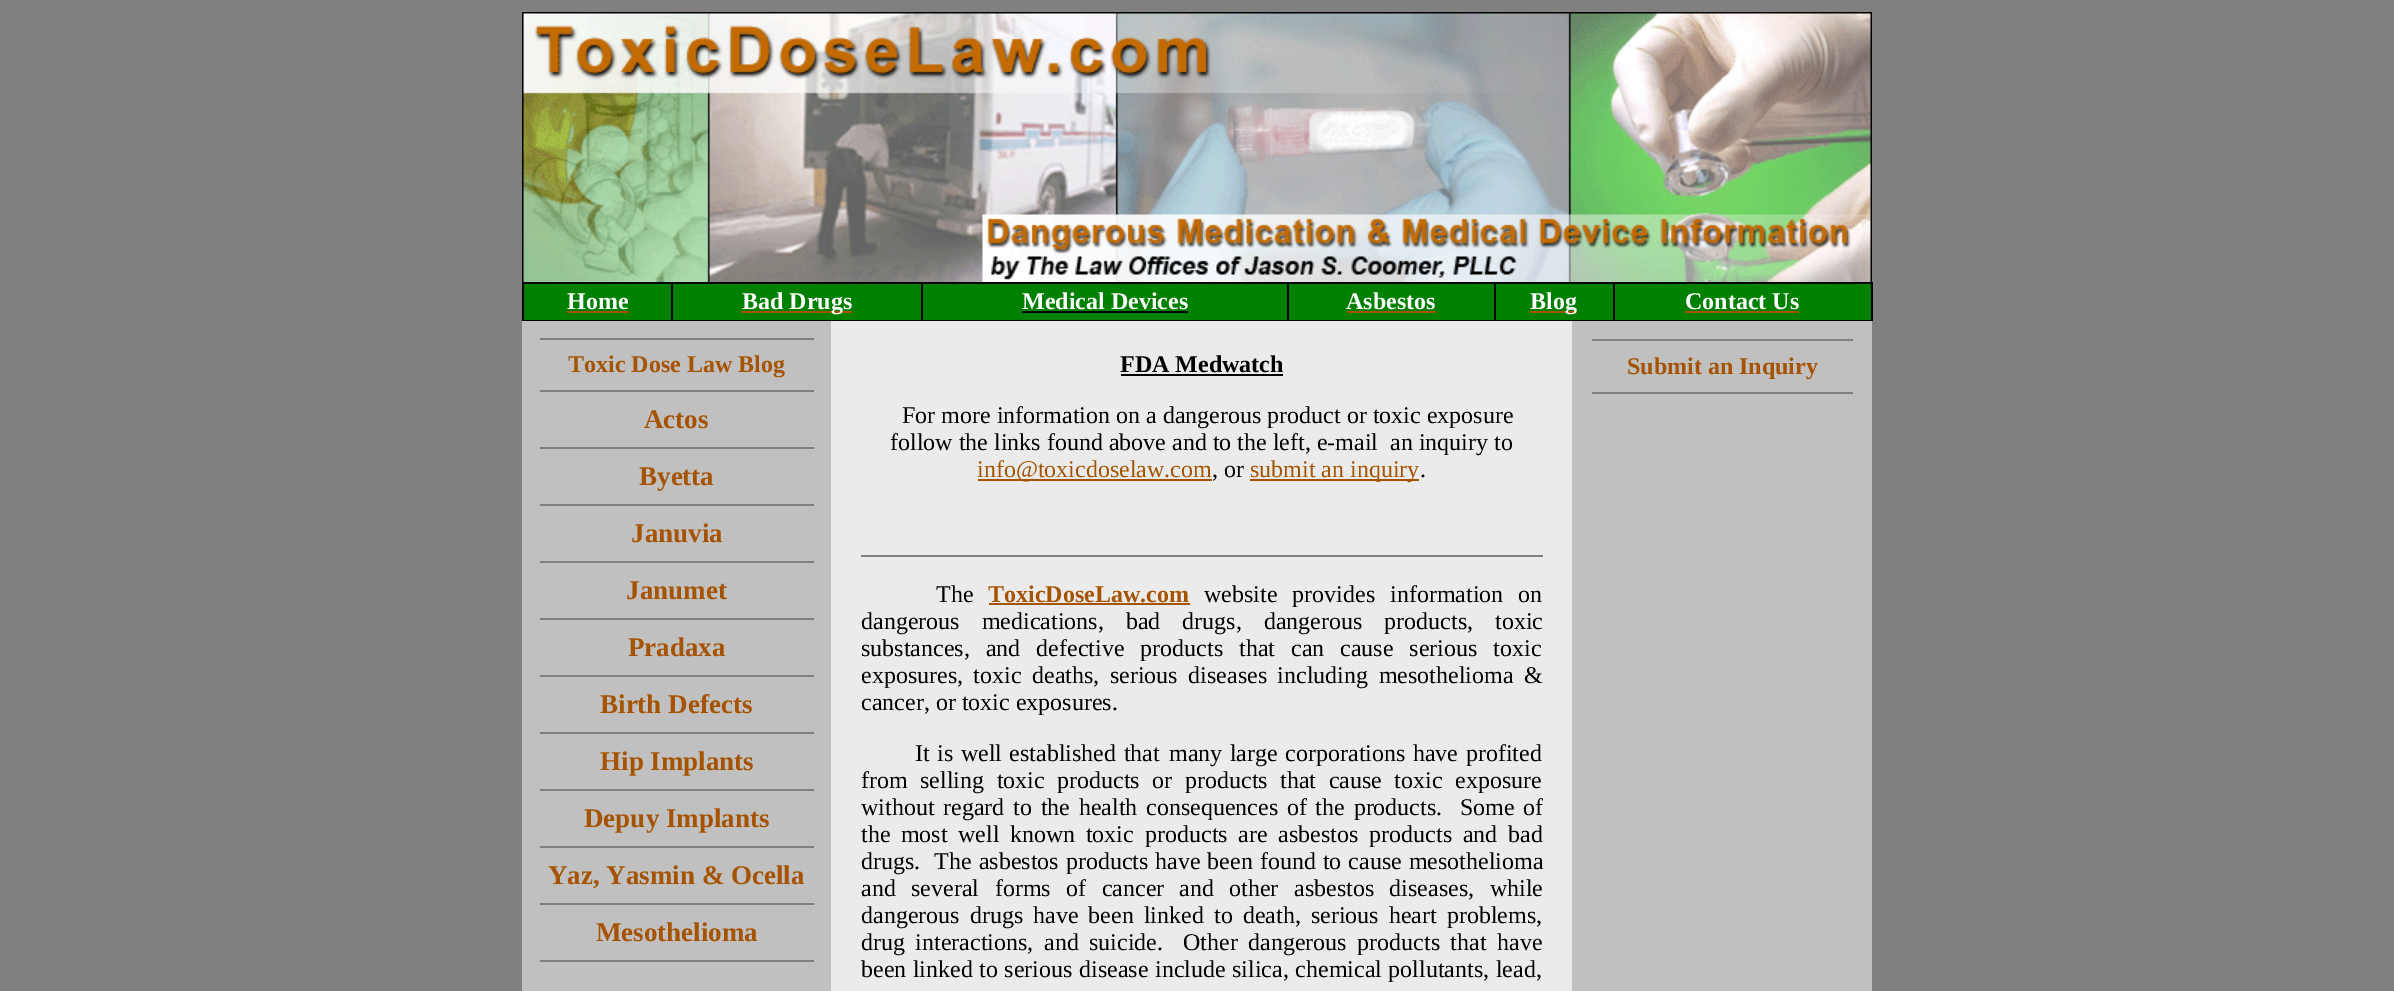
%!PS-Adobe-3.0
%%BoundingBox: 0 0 2394 991
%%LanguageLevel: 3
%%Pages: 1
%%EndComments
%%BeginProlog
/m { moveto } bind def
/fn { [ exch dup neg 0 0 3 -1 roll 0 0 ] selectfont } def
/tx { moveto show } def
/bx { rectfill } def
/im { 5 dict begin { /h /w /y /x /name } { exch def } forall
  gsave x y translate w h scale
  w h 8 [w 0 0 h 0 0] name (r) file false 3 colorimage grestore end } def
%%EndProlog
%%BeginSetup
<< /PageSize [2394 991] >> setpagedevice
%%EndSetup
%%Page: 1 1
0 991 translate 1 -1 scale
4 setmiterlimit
0.502 setgray
0 0 2394 991 bx
(image0.raw) 522 12 1350 270 im
0 0.502 0 setrgbcolor
524 284 1347 36 bx
0 setgray
522 282 1350 2 bx
1871 282 2 39 bx
522 320 1350 1 bx
522 282 2 39 bx
/LiberationSerif-Bold 24 fn
1 setgray
(Home) 567 309 tx
0.651 0.325 0 setrgbcolor
567 311 62 2 bx
0 setgray
671 282 2 39 bx
0.651 0.325 0 setrgbcolor
741 311 111 2 bx
1 setgray
(Bad Drugs) 742 309 tx
0 setgray
921 282 2 39 bx
1 setgray
(Medical Devices) 1022 309 tx
0 setgray
1022 311 166 2 bx
1287 282 2 39 bx
1 setgray
(Asbestos) 1346 309 tx
0.651 0.325 0 setrgbcolor
1347 311 89 2 bx
0 setgray
1494 282 2 39 bx
0.651 0.325 0 setrgbcolor
1530 311 47 2 bx
1 setgray
(Blog) 1530 309 tx
0 setgray
1613 282 2 39 bx
1 setgray
(Contact Us) 1685 309 tx
0.651 0.325 0 setrgbcolor
1685 311 114 2 bx
0.753 setgray
522 321 309 670 bx
0.502 setgray
540 338 274 2 bx
0.651 0.325 0 setrgbcolor
(Toxic Dose Law Blog) 568 372 tx
0.502 setgray
540 390 274 2 bx
/LiberationSerif-Bold 27 fn
0.651 0.325 0 setrgbcolor
(Actos) 644 428 tx
0.502 setgray
540 447 274 2 bx
0.651 0.325 0 setrgbcolor
(Byetta) 639 485 tx
0.502 setgray
540 504 274 2 bx
0.651 0.325 0 setrgbcolor
(Januvia) 631 542 tx
0.502 setgray
540 561 274 2 bx
0.651 0.325 0 setrgbcolor
(Janumet) 626 599 tx
0.502 setgray
540 618 274 2 bx
0.651 0.325 0 setrgbcolor
(Pradaxa) 628 656 tx
0.502 setgray
540 675 274 2 bx
0.651 0.325 0 setrgbcolor
(Birth Defects) 600 713 tx
0.502 setgray
540 732 274 2 bx
0.651 0.325 0 setrgbcolor
(Hip Implants) 600 770 tx
0.502 setgray
540 789 274 2 bx
0.651 0.325 0 setrgbcolor
(Depuy Implants) 584 827 tx
0.502 setgray
540 846 274 2 bx
0.651 0.325 0 setrgbcolor
(Yaz, Yasmin & Ocella) 548 884 tx
0.502 setgray
540 903 274 2 bx
0.651 0.325 0 setrgbcolor
(Mesothelioma) 596 941 tx
0.502 setgray
540 960 274 2 bx
0.922 setgray
831 321 741 670 bx
/LiberationSerif-Bold 24 fn
0 setgray
(FDA Medwatch) 1120 372 tx
1121 374 162 2 bx
/LiberationSerif-Regular 24 fn
(For more information on a dangerous product or toxic exposure) 902 423 tx
(follow the links found above and to the left, e-mail  an inquiry to) 890 450 tx
0.651 0.325 0 setrgbcolor
978 479 234 2 bx
(info@toxicdoselaw.com) 977 477 tx
0 setgray
(, or) 1212 477 tx
0.651 0.325 0 setrgbcolor
1250 479 169 2 bx
(submit an inquiry) 1250 477 tx
0 setgray
(.) 1420 477 tx
0.502 setgray
861 555 682 2 bx
0 setgray
(The) 936 602 tx
/LiberationSerif-Bold 24 fn
0.651 0.325 0 setrgbcolor
(ToxicDoseLaw.com) 988 602 tx
989 603 201 2 bx
/LiberationSerif-Regular 24 fn
0 setgray
1204 602 m 9 0 32 (website provides information) widthshow
(on) 1518 602 tx
861 629 m 16 0 32 (dangerous medications, bad drugs, dangerous products, toxic) widthshow
861 656 m 10 0 32 (substances, and defective products that can cause serious toxic) widthshow
861 683 m 4.5 0 32 (exposures, toxic deaths, serious diseases including mesothelioma &) widthshow
(cancer, or toxic exposures.) 861 710 tx
915 761 m 1.5 0 32 (It is well established that) widthshow
1169 761 m 1.5 0 32 (many large corporations have profited) widthshow
861 788 m 6.5 0 32 (from selling toxic products or) widthshow
1185 788 m 6.5 0 32 (products that cause toxic exposure) widthshow
861 815 m 2.75 0 32 (without regard to the health) widthshow
1146 815 m 2.75 0 32 (consequences of the products.  Some of) widthshow
861 842 m 4.5 0 32 (the most well known toxic) widthshow
1145 842 m 4.75 0 32 (products are asbestos products and bad) widthshow
861 869 m 1 0 32 (drugs.  The asbestos products) widthshow
1155 869 m 1 0 32 (have been found to cause mesothelioma) widthshow
861 896 m 9.5 0 32 (and several forms of cancer) widthshow
1179 896 m 9.5 0 32 (and other asbestos diseases, while) widthshow
861 923 m 4 0 32 (dangerous drugs have been linked) widthshow
1214 923 m 4 0 32 (to death, serious heart problems,) widthshow
861 950 m 4.5 0 32 (drug interactions, and suicide.) widthshow
1183 950 m 4.5 0 32 (Other dangerous products that have) widthshow
861 977 m 0.5 0 32 (been linked to serious disease) widthshow
1155 977 m 0.5 0 32 (include silica, chemical pollutants, lead,) widthshow
0.753 setgray
1572 321 300 670 bx
0.502 setgray
1592 339 261 2 bx
/LiberationSerif-Bold 24 fn
0.651 0.325 0 setrgbcolor
(Submit an Inquiry) 1627 374 tx
0.502 setgray
1592 392 261 2 bx
showpage
%%EOF
